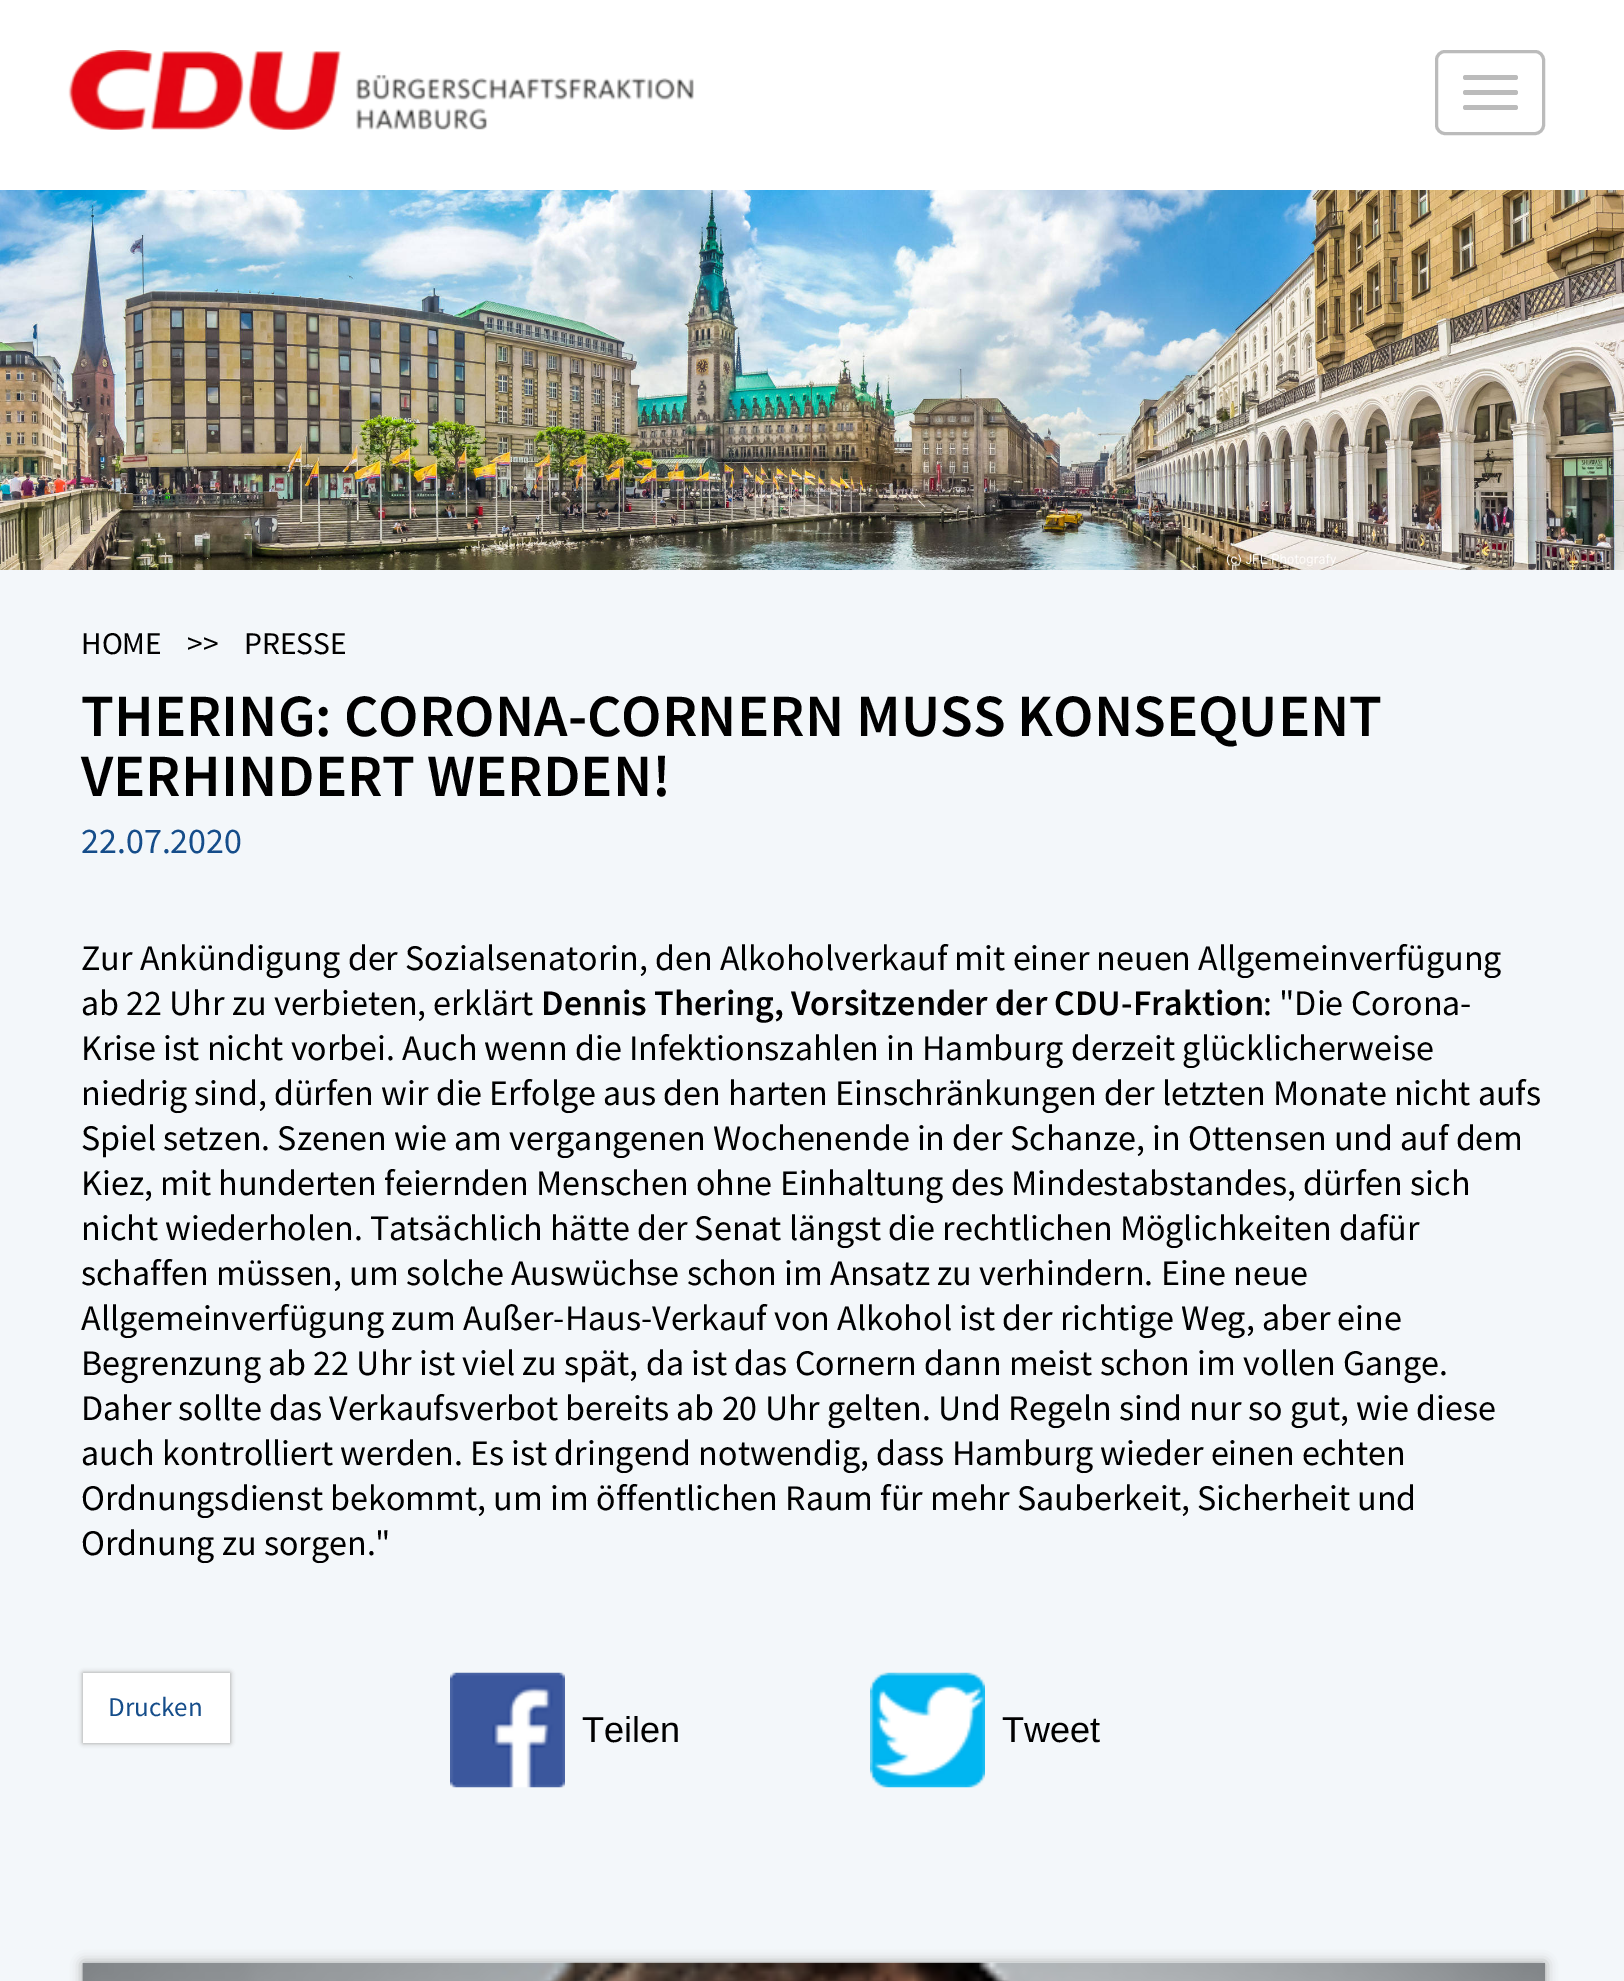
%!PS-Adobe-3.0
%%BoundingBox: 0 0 1624 1981
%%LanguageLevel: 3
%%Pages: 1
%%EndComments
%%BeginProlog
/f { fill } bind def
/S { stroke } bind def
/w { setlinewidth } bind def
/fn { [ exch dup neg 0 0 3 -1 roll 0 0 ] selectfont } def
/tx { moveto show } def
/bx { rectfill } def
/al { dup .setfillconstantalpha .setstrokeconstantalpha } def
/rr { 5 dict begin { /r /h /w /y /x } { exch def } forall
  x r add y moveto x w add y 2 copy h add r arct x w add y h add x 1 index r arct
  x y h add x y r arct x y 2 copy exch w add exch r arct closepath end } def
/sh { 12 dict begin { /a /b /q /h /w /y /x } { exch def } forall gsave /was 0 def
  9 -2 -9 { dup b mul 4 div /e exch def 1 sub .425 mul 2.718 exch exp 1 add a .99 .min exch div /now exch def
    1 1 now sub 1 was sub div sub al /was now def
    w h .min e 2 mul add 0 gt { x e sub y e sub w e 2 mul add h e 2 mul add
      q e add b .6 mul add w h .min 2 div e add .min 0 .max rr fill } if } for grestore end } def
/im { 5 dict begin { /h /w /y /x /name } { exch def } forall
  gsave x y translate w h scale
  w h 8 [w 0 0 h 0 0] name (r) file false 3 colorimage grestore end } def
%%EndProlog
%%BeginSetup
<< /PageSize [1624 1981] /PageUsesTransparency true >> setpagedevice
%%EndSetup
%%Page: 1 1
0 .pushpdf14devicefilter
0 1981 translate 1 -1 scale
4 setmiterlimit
1 setgray
0 0 1624 1981 bx
(image0.raw) 68 50 626 80 im
0.733 setgray
3 w
1436.5 51.5 107 82 8.5 rr S
1463 75 55 5 2.5 rr f
1463 90 55 5 2.5 rr f
1463 105 55 5 2.5 rr f
(image1.raw) 0 190 1624 380 im
0.953 0.969 0.98 setrgbcolor
0 570 1624 1411 bx
/SourceSansPro-Regular 31.5 fn
0 setgray
(HOME) 81 654 tx
(>>) 187 654 tx
(PRESSE) 244 654 tx
/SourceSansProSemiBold-SemiBold 60 fn
(THERING: CORONA-CORNERN MUSS KONSEQUENT) 81 736 tx
(VERHINDERT WERDEN!) 81 796 tx
/SourceSansPro-Regular 36 fn
0.082 0.302 0.541 setrgbcolor
(22.07.2020) 81 853 tx
0 setgray
(Zur Ankündigung der Sozialsenatorin, den Alkoholverkauf mit einer neuen Allgemeinverfügung) 81 970 tx
(ab 22 Uhr zu verbieten, erklärt) 81 1015 tx
/SourceSansProSemiBold-SemiBold 36 fn
(Dennis Thering, Vorsitzender der CDU-Fraktion) 541 1015 tx
/SourceSansPro-Regular 36 fn
(: "Die Corona-) 1263 1015 tx
(Krise ist nicht vorbei. Auch wenn die Infektionszahlen in Hamburg derzeit glücklicherweise) 81 1060 tx
(niedrig sind, dürfen wir die Erfolge aus den harten Einschränkungen der letzten Monate nicht aufs) 81 1105 tx
(Spiel setzen. Szenen wie am vergangenen Wochenende in der Schanze, in Ottensen und auf dem) 81 1150 tx
(Kiez, mit hunderten feiernden Menschen ohne Einhaltung des Mindestabstandes, dürfen sich) 81 1195 tx
(nicht wiederholen. Tatsächlich hätte der Senat längst die rechtlichen Möglichkeiten dafür) 81 1240 tx
(schaffen müssen, um solche Auswüchse schon im Ansatz zu verhindern. Eine neue) 81 1285 tx
(Allgemeinverfügung zum Außer-Haus-Verkauf von Alkohol ist der richtige Weg, aber eine) 81 1330 tx
(Begrenzung ab 22 Uhr ist viel zu spät, da ist das Cornern dann meist schon im vollen Gange.) 81 1375 tx
(Daher sollte das Verkaufsverbot bereits ab 20 Uhr gelten. Und Regeln sind nur so gut, wie diese) 81 1420 tx
(auch kontrolliert werden. Es ist dringend notwendig, dass Hamburg wieder einen echten) 81 1465 tx
(Ordnungsdienst bekommt, um im öffentlichen Raum für mehr Sauberkeit, Sicherheit und) 81 1510 tx
(Ordnung zu sorgen.") 81 1555 tx
0.604 setgray
83 1673 147 70 0 2.5 1 sh
1 setgray
83 1673 147 70 bx
/SourceSansPro-Regular 27 fn
0.082 0.302 0.541 setrgbcolor
(Drucken) 108 1716 tx
(image2.raw) 450 1672 115 116 im
/LiberationSans-Regular 36 fn
0 setgray
(Teilen) 582 1742 tx
(image3.raw) 870 1672 115 116 im
(Tweet) 1002 1742 tx
0.604 setgray
83 1963 1462 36 0 6 1 sh
(image4.raw) 82 1962 1463 19 im
.poppdf14devicefilter showpage
%%EOF
